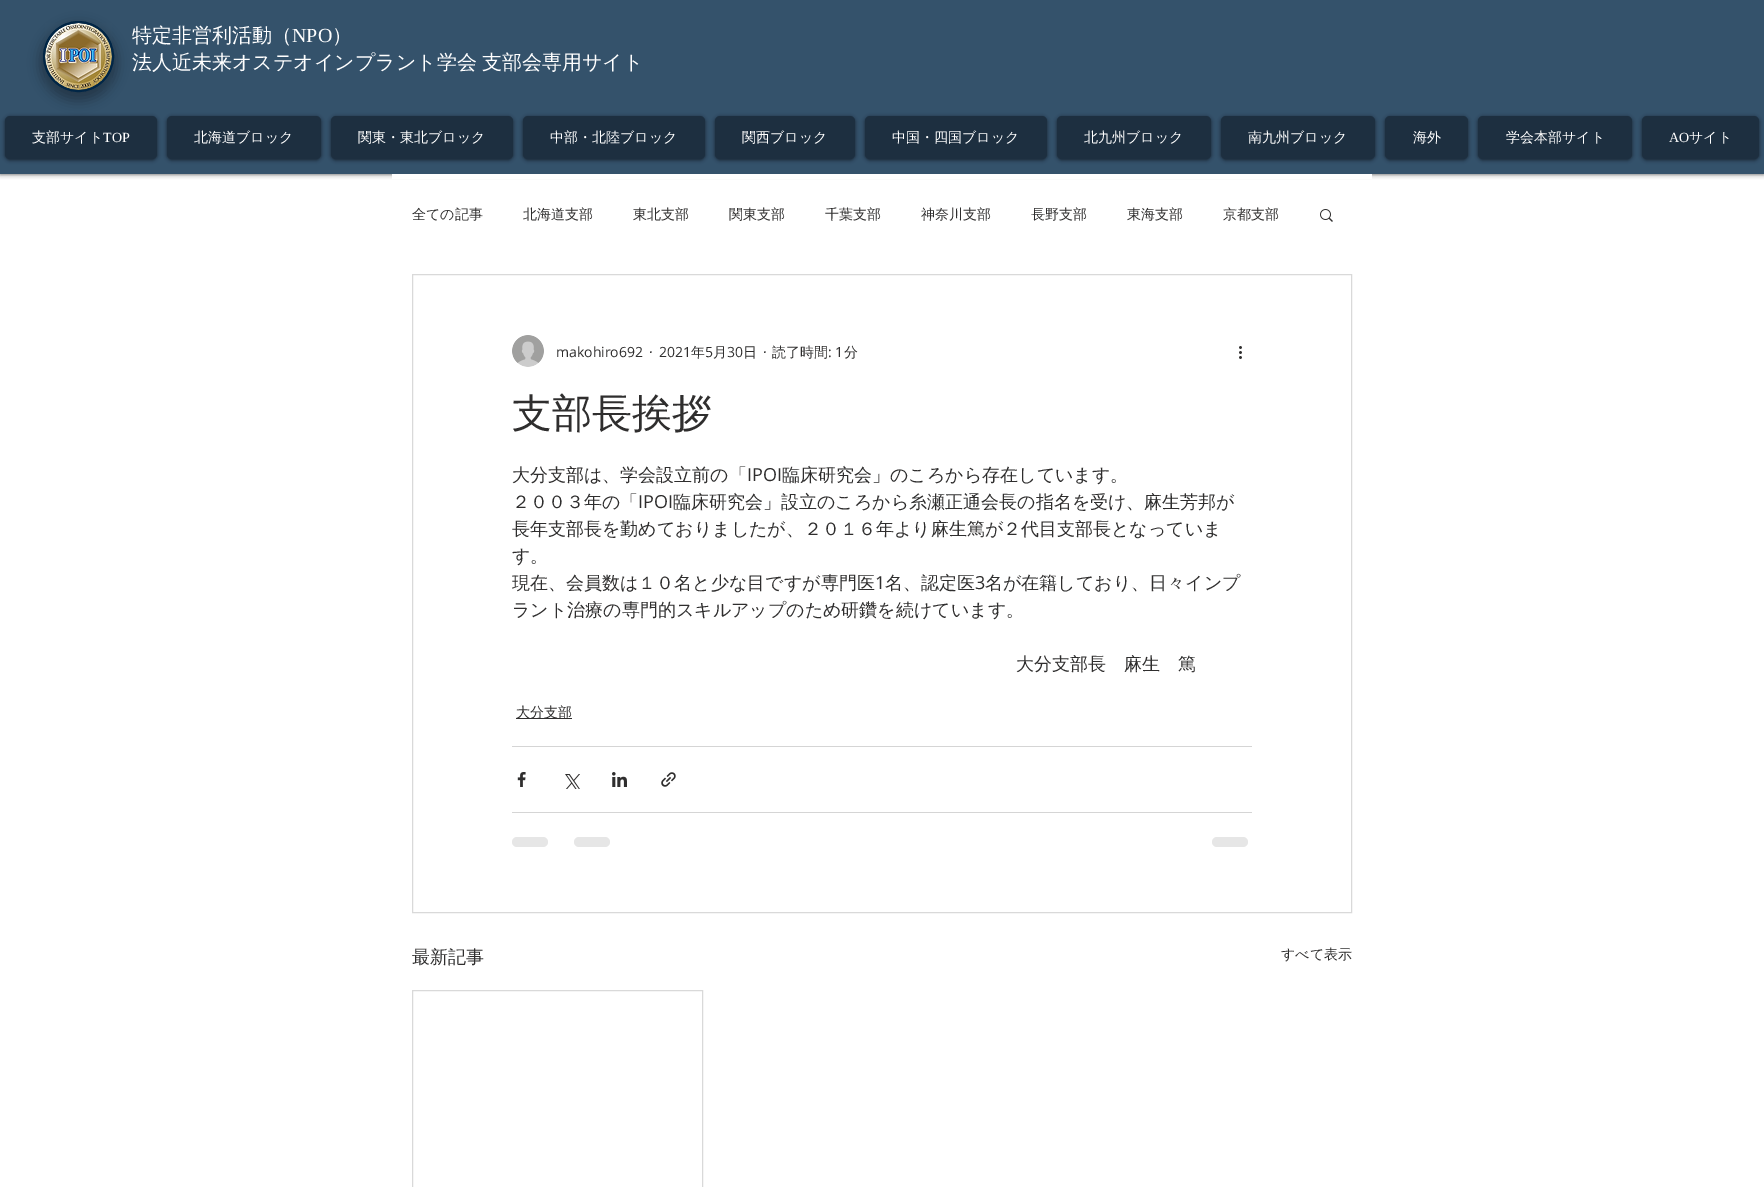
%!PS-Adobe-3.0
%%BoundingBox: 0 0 1764 1187
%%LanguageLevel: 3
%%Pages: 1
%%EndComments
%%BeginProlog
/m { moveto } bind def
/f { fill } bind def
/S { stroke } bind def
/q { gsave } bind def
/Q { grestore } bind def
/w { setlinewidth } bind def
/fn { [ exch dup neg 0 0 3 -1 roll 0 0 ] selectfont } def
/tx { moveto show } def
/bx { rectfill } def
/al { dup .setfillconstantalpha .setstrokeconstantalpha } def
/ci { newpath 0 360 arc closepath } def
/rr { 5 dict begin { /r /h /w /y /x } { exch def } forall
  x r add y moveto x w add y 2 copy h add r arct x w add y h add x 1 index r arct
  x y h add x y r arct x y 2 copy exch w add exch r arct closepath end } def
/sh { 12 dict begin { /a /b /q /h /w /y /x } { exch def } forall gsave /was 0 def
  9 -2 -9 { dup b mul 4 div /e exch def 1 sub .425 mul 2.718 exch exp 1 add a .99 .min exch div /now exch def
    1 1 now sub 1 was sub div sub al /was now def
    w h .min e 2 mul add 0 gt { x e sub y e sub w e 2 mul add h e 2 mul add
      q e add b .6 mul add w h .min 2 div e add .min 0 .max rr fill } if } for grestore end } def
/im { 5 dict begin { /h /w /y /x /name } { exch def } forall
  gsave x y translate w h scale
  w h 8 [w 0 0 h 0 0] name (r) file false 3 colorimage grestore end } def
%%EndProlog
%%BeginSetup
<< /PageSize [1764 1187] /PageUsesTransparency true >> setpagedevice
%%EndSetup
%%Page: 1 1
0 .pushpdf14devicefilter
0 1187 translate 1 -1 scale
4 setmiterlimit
1 setgray
0 0 1764 1187 bx
0 setgray
0 0 1764 174 0 2.5 0.7 sh
0.204 0.322 0.42 setrgbcolor
0 0 1764 174 bx
0 setgray
40 24 77 77 38.5 6 0.31 sh
0.004 0.149 0.275 setrgbcolor
78.5 56.5 34.5 ci q f Q
2 w
S
(image0.raw) 45 23 67 67 im
/WenQuanYiZenHei-Medium 20 fn
1 setgray
(特定非営利活動（) 132 42 tx
/LiberationSerif-Regular 20 fn
(NPO) 292 42 tx
/WenQuanYiZenHei-Medium 20 fn
(）) 332 42 tx
(法人) 132 69 tx
172 69 m -1 0 32 (近未来オステオインプラント学会 支部会専用サイト) widthshow
0 setgray
5 117 152 43 5 2 0.6 sh
0.114 0.184 0.251 setrgbcolor
5 116 152 43 5 rr f
/WenQuanYiZenHei-Medium 14 fn
1 setgray
(支部サイト) 32 142 tx
/LiberationSerif-Regular 14 fn
(TOP) 103 142 tx
0 setgray
167 117 154 43 5 2 0.6 sh
0.114 0.184 0.251 setrgbcolor
167 116 154 43 5 rr f
/WenQuanYiZenHei-Medium 14 fn
1 setgray
(北海道ブロック) 194 142 tx
0 setgray
331 117 182 43 5 2 0.6 sh
0.114 0.184 0.251 setrgbcolor
331 116 182 43 5 rr f
1 setgray
(関東・東北ブロック) 358 142 tx
0 setgray
523 117 182 43 5 2 0.6 sh
0.114 0.184 0.251 setrgbcolor
523 116 182 43 5 rr f
1 setgray
(中部・北陸ブロック) 550 142 tx
0 setgray
715 117 140 43 5 2 0.6 sh
0.114 0.184 0.251 setrgbcolor
715 116 140 43 5 rr f
1 setgray
(関西ブロック) 742 142 tx
0 setgray
865 117 182 43 5 2 0.6 sh
0.114 0.184 0.251 setrgbcolor
865 116 182 43 5 rr f
1 setgray
(中国・四国ブロック) 892 142 tx
0 setgray
1057 117 154 43 5 2 0.6 sh
0.114 0.184 0.251 setrgbcolor
1057 116 154 43 5 rr f
1 setgray
(北九州ブロック) 1084 142 tx
0 setgray
1221 117 154 43 5 2 0.6 sh
0.114 0.184 0.251 setrgbcolor
1221 116 154 43 5 rr f
1 setgray
(南九州ブロック) 1248 142 tx
0 setgray
1385 117 83 43 5 2 0.6 sh
0.114 0.184 0.251 setrgbcolor
1385 116 83 43 5 rr f
1 setgray
(海外) 1413 142 tx
0 setgray
1478 117 154 43 5 2 0.6 sh
0.114 0.184 0.251 setrgbcolor
1478 116 154 43 5 rr f
1 setgray
(学会本部サイト) 1506 142 tx
0 setgray
1642 117 117 43 5 2 0.6 sh
0.114 0.184 0.251 setrgbcolor
1642 116 117 43 5 rr f
/LiberationSerif-Regular 14 fn
1 setgray
(AO) 1669 142 tx
/WenQuanYiZenHei-Medium 14 fn
(サイト) 1689 142 tx
392 174 980 5 bx
0.184 0.18 0.18 setrgbcolor
(全ての記事) 412 219 tx
(北海道支部) 523 219 tx
(東北支部) 633 219 tx
(関東支部) 729 219 tx
(千葉支部) 825 219 tx
(神奈川支部) 921 219 tx
(長野支部) 1031 219 tx
(東海支部) 1127 219 tx
(京都支部) 1223 219 tx
(image1.raw) 1320 209 13 13 im
0.851 setgray
1 w
412.5 274.5 939 638 rectstroke
(image2.raw) 512 335 32 32 im
/OpenSans-Regular 14 fn
0.184 0.18 0.18 setrgbcolor
(makohiro692) 556 357 tx
(·) 649 357 tx
(2021) 659 357 tx
/WenQuanYiZenHei-Medium 14 fn
(年) 691 357 tx
/OpenSans-Regular 14 fn
(5) 705 357 tx
/WenQuanYiZenHei-Medium 14 fn
(月) 713 357 tx
/OpenSans-Regular 14 fn
(30) 727 357 tx
/WenQuanYiZenHei-Medium 14 fn
(日) 743 357 tx
/OpenSans-Regular 14 fn
(·) 763 357 tx
/WenQuanYiZenHei-Medium 14 fn
(読了時間) 772 357 tx
/OpenSans-Regular 14 fn
(: 1) 828 357 tx
/WenQuanYiZenHei-Medium 14 fn
(分) 844 357 tx
(image3.raw) 1239 346 3 13 im
/WenQuanYiZenHei-Medium 40 fn
(支部長挨拶) 512 427 tx
/WenQuanYiZenHei-Medium 18 fn
(大分支部は、学会設立前の「) 512 481 tx
/OpenSans-Regular 18 fn
(IPOI) 747 481 tx
/WenQuanYiZenHei-Medium 18 fn
(臨床研究会」のころから存在しています。) 782 481 tx
(２００３年の「) 512 508 tx
/OpenSans-Regular 18 fn
(IPOI) 638 508 tx
/WenQuanYiZenHei-Medium 18 fn
(臨床研究会」設立のころから糸瀬正通会長の指名を受け、麻生芳邦が) 673 508 tx
(長年支部長を勤めておりましたが、２０１６年より麻生篤が２代目支部長となっていま) 512 535 tx
(す。) 512 562 tx
(現在、会員数は１０名と少な目ですが専門医) 512 589 tx
/OpenSans-Regular 18 fn
(1) 875 589 tx
/WenQuanYiZenHei-Medium 18 fn
(名、認定医) 885 589 tx
/OpenSans-Regular 18 fn
(3) 975 589 tx
/WenQuanYiZenHei-Medium 18 fn
(名が在籍しており、日々インプ) 985 589 tx
(ラント治療の専門的スキルアップのため研鑽を続けています。) 512 616 tx
(大分支部長　麻生　篤) 1016 670 tx
516 718 56 1 bx
/WenQuanYiZenHei-Medium 14 fn
(大分支部) 516 717 tx
0.835 setgray
512 746 740 1 bx
(image4.raw) 517 772 9 15 im
(image5.raw) 565 774 15 15 im
(image6.raw) 612 772 15 15 im
(image7.raw) 661 772 15 15 im
512 812 740 1 bx
0.902 setgray
512 837 36 10 5 rr f
574 837 36 10 5 rr f
1212 837 36 10 5 rr f
/WenQuanYiZenHei-Medium 18 fn
0.184 0.18 0.18 setrgbcolor
(最新記事) 412 963 tx
/WenQuanYiZenHei-Medium 14 fn
(すべて表示) 1281 959 tx
0.851 setgray
412.5 990.5 290 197 rectstroke
.poppdf14devicefilter showpage
%%EOF
